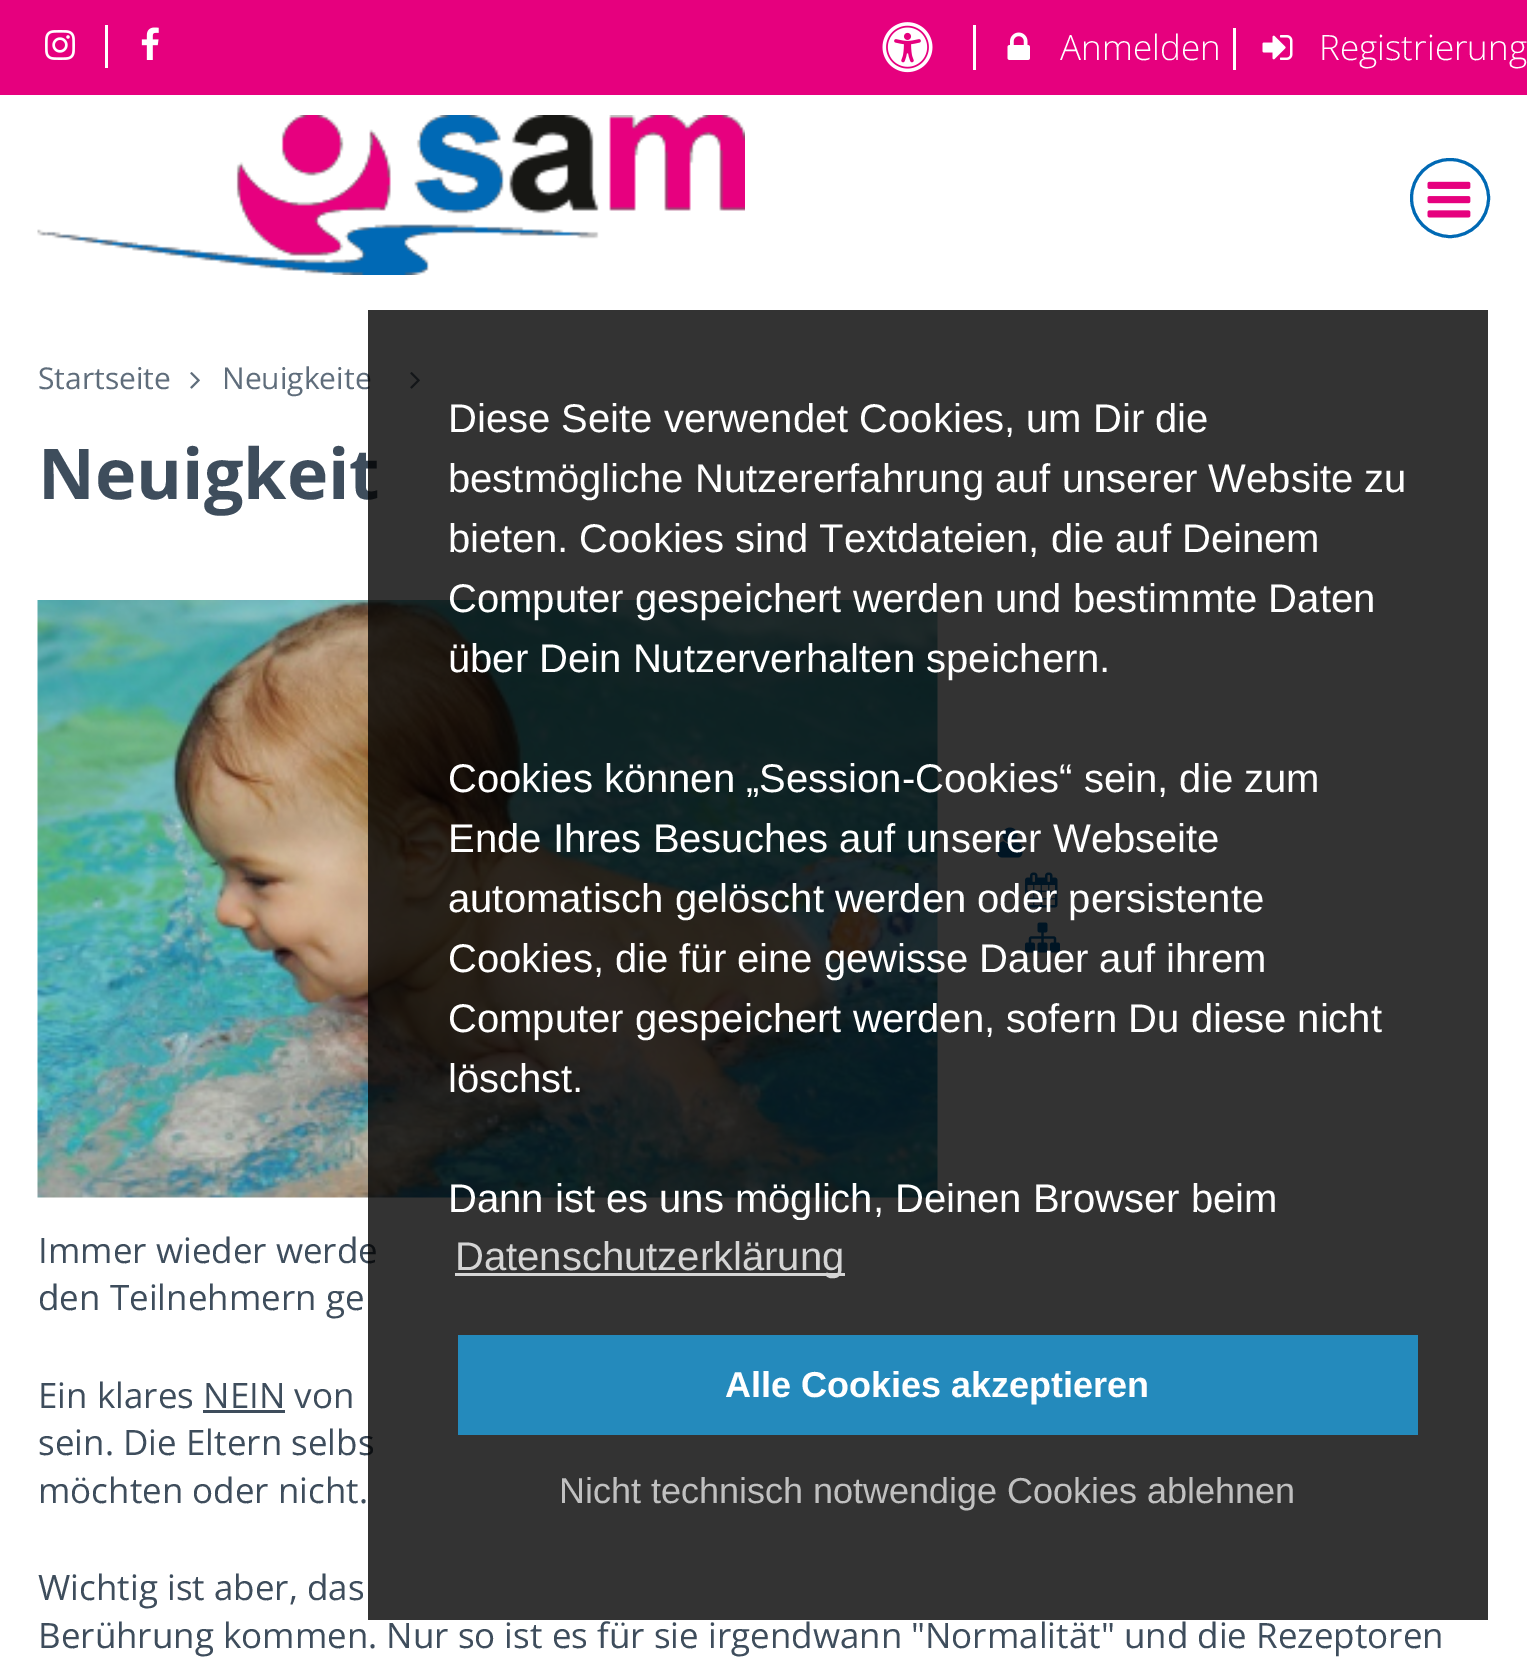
%!PS-Adobe-3.0
%%BoundingBox: 0 0 1527 1660
%%LanguageLevel: 3
%%Pages: 1
%%EndComments
%%BeginProlog
/S { stroke } bind def
/q { gsave } bind def
/Q { grestore } bind def
/w { setlinewidth } bind def
/fn { [ exch dup neg 0 0 3 -1 roll 0 0 ] selectfont } def
/tx { moveto show } def
/bx { rectfill } def
/al { dup .setfillconstantalpha .setstrokeconstantalpha } def
/ci { newpath 0 360 arc closepath } def
/im { 5 dict begin { /h /w /y /x /name } { exch def } forall
  gsave x y translate w h scale
  w h 8 [w 0 0 h 0 0] name (r) file false 3 colorimage grestore end } def
%%EndProlog
%%BeginSetup
<< /PageSize [1527 1660] /PageUsesTransparency true >> setpagedevice
%%EndSetup
%%Page: 1 1
0 .pushpdf14devicefilter
0 1660 translate 1 -1 scale
4 setmiterlimit
1 setgray
0 0 1527 1660 bx
0.902 0 0.494 setrgbcolor
0 0 1527 95 bx
1 setgray
105 25 3 43 bx
(image0.raw) 45 30 30 30 im
(image1.raw) 141 27 18 33 im
973 25 3 45 bx
(image2.raw) 882 22 51 51 im
1233 28 3 42 bx
(image3.raw) 1007 32 23 28 im
/OpenSans-Light 35 fn
(Anmelden) 1060 60 tx
(image4.raw) 1262 35 31 25 im
(Registrierung) 1319 60 tx
(image5.raw) 37 115 708 160 im
0 0.412 0.706 setrgbcolor
3 w
1450 198 38.5 ci S
(image6.raw) 1427 181 44 37 im
/OpenSans-Regular 30 fn
0.373 0.427 0.482 setrgbcolor
(Startseite) 38 389 tx
(image7.raw) 190 372 10 17 im
(Neuigkeite) 222 389 tx
(image7.raw) 410 372 10 17 im
/OpenSans-Bold 70 fn
0.243 0.302 0.361 setrgbcolor
(Neuigkeit) 38 499 tx
(image8.raw) 37 600 901 598 im
(image9.raw) 997 827 26 31 im
(image10.raw) 1025 872 33 36 im
(image11.raw) 1025 922 35 31 im
/OpenSans-Regular 35 fn
(Immer wieder werde) 38 1263 tx
(den Teilnehmern ge) 38 1310 tx
(Ein klares NEIN von) 38 1408 tx
203 1410 82 3 bx
(sein. Die Eltern selbs) 38 1455 tx
(möchten oder nicht.) 38 1503 tx
(Wichtig ist aber, das) 38 1600 tx
(Berührung kommen. Nur so ist es für sie irgendwann "Normalität" und die Rezeptoren) 38 1648 tx
0.8 al
0 setgray
368 310 1120 1310 bx
/LiberationSans-Regular 40 fn
1 al
1 setgray
(Diese Seite verwendet Cookies, um Dir die) 448 432 tx
(bestmögliche Nutzererfahrung auf unserer Website zu) 448 492 tx
(bieten. Cookies sind Textdateien, die auf Deinem) 448 552 tx
(Computer gespeichert werden und bestimmte Daten) 448 612 tx
(über Dein Nutzerverhalten speichern.) 448 672 tx
(Cookies können „Session-Cookies“ sein, die zum) 448 792 tx
(Ende Ihres Besuches auf unserer Webseite) 448 852 tx
(automatisch gelöscht werden oder persistente) 448 912 tx
(Cookies, die für eine gewisse Dauer auf ihrem) 448 972 tx
(Computer gespeichert werden, sofern Du diese nicht) 448 1032 tx
(löschst.) 448 1092 tx
q
448 390 960 830 rectclip
(Dann ist es uns möglich, Deinen Browser beim) 448 1212 tx
Q
0.839 setgray
455 1273 390 3 bx
0.835 setgray
(Datenschutzerklärung) 455 1270 tx
0.141 0.541 0.737 setrgbcolor
458 1335 960 100 bx
/LiberationSans-Bold 36 fn
1 setgray
(Alle Cookies akzeptieren) 725 1397 tx
/LiberationSans-Regular 36 fn
0.753 setgray
(Nicht technisch notwendige Cookies ablehnen) 559 1503 tx
.poppdf14devicefilter showpage
%%EOF
